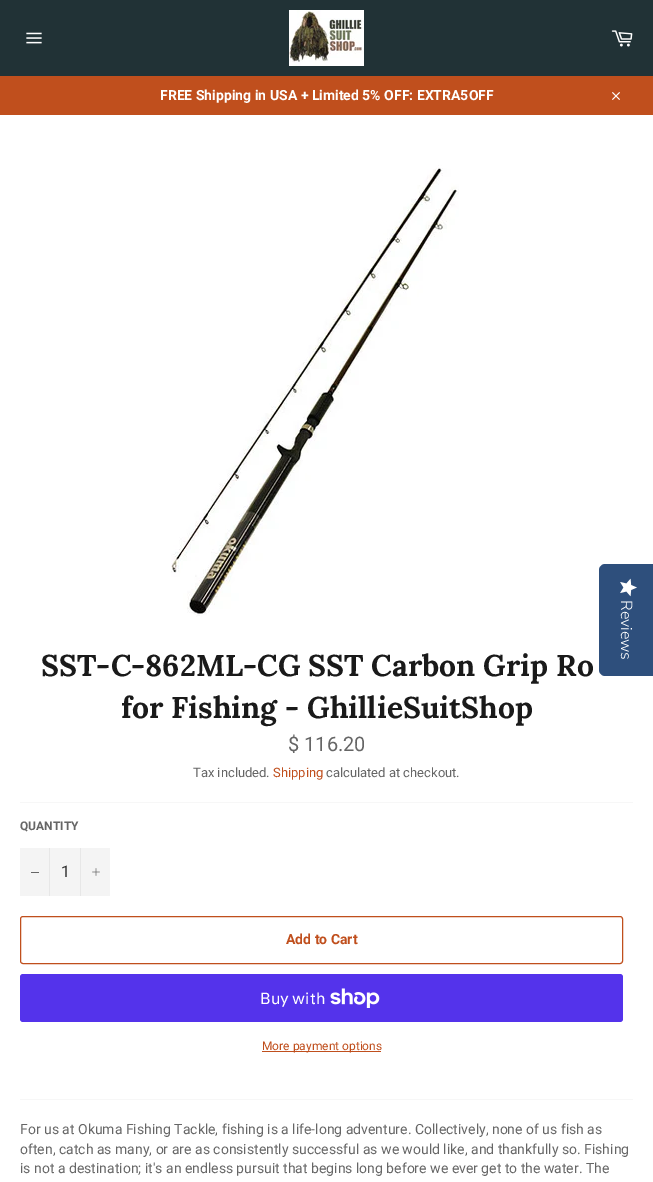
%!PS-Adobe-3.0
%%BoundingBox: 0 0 653 1182
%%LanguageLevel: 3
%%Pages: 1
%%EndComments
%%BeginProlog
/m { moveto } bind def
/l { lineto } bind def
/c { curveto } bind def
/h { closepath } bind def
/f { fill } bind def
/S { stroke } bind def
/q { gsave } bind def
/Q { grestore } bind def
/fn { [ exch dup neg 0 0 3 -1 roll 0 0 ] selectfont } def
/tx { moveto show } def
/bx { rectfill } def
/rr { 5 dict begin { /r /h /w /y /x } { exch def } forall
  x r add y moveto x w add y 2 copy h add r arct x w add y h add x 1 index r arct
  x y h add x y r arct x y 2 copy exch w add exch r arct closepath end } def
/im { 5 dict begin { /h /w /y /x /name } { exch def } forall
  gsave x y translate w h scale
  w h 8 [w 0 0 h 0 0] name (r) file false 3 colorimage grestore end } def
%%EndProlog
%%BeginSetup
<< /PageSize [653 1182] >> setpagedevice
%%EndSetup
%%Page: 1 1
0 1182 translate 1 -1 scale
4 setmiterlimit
0.129 0.196 0.212 setrgbcolor
0 0 653 1182 bx
(image0.raw) 26 32 16 12 im
(image1.raw) 289 10 75 56 im
(image2.raw) 611 30 22 17 im
0.753 0.31 0.114 setrgbcolor
0 76 653 39 bx
/Roboto-Bold 14 fn
1 setgray
(FREE Shipping in USA + Limited 5% OFF: EXTRA5OFF) 160 100 tx
(image3.raw) 612 92 8 8 im
0 115 653 1067 bx
0.18 0.31 0.486 setrgbcolor
653 564 m 653 676 l 605 676 l 602 676 599 673 599 670 c 599 570 l 599 567 602 564 605 564 c h f
(image4.raw) 620 578 17 19 im
/NunitoSans-Light 16 fn
1 setgray
q 621 600 translate 90 rotate 0 0 m (Reviews) show Q
(image5.raw) 171 165 288 452 im
/Lora-Bold 30 fn
0.102 setgray
(SST-C-862ML-CG SST Carbon Grip Ro) 41 676 tx
(for Fishing - GhillieSuitShop) 121 718 tx
/Roboto-Regular 20 fn
0.4 setgray
($ 116.20) 288 751 tx
/Roboto-Regular 13 fn
(Tax included.) 193 777 tx
0.753 0.31 0.114 setrgbcolor
(Shipping) 273 777 tx
0.4 setgray
(calculated at checkout.) 326 777 tx
0.969 setgray
20 802 613 1 bx
/Roboto-Bold 12 fn
0.4 setgray
(QUANTITY) 20 830 tx
0.957 setgray
20 848 90 48 bx
0.906 setgray
49 848 1 48 bx
0.4 setgray
31 872 8 1 bx
/Roboto-Regular 16 fn
0.2 setgray
(1) 61 877 tx
0.906 setgray
80 848 1 48 bx
(image6.raw) 92 868 8 8 im
0.753 0.31 0.114 setrgbcolor
20.5 916.5 602 47 2.5 rr S
/Roboto-Bold 14 fn
(Add to Cart) 286 944 tx
0.329 0.2 0.922 setrgbcolor
20 974 603 48 3 rr f
/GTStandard-Regular 16 fn
1 setgray
(Buy with) 260 1004 tx
(image7.raw) 330 988 50 20 im
0.753 0.31 0.114 setrgbcolor
262 1051 119 1 bx
/Roboto-Regular 12 fn
(More payment options) 262 1050 tx
0.969 setgray
20 1099 613 1 bx
/Roboto-Regular 14 fn
0.4 setgray
(For us at Okuma Fishing Tackle, fishing is a life-long adventure. Collectively, none of us fish as) 20 1134 tx
(often, catch as many, or are as consistently successful as we would like, and thankfully so. Fishing) 20 1154 tx
(is not a destination; it's an endless pursuit that begins long before we ever get to the water. The) 20 1173 tx
showpage
%%EOF
